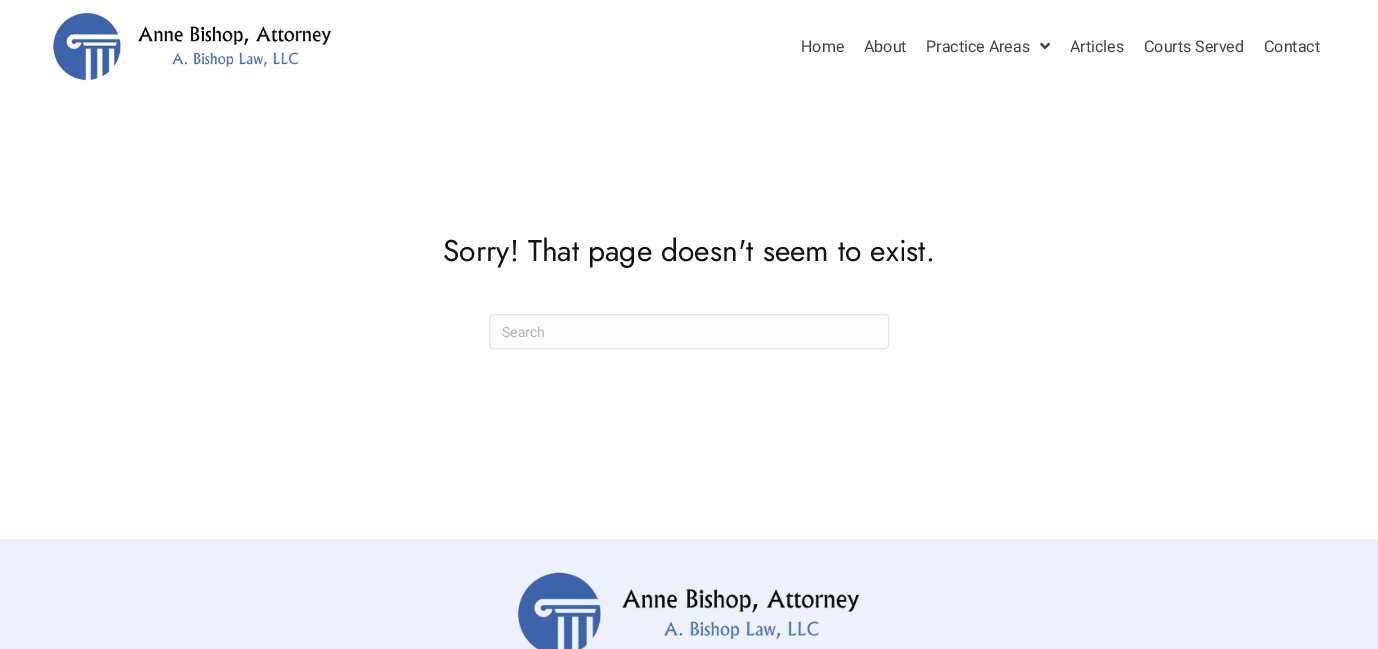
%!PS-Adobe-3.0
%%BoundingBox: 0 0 1378 649
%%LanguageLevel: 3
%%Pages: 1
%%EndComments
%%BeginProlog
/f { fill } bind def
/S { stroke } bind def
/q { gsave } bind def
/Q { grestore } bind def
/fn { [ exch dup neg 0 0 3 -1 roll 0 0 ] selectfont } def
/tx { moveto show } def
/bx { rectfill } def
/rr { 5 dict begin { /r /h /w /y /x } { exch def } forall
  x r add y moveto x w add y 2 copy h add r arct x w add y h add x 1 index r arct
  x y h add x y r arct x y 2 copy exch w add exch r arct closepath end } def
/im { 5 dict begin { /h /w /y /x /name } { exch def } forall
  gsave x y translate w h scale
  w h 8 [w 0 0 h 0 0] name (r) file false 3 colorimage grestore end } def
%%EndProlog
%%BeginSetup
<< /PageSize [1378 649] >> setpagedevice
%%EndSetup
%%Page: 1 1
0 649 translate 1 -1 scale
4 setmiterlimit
1 setgray
0 0 1378 649 bx
(image0.raw) 53 12 279 69 im
/Roboto-Regular 16 fn
0.271 setgray
(Home) 801 52 tx
(About) 864 52 tx
(Practice Areas) 926 52 tx
(image1.raw) 1040 42 10 8 im
(Articles) 1070 52 tx
(Courts Served) 1144 52 tx
(Contact) 1264 52 tx
/Jost-Regular 30 fn
0.071 setgray
(Sorry! That page doesn't seem to exist.) 443 261 tx
0.988 setgray
489.5 314.5 399 34 3.5 rr q f Q
0.902 setgray
S
/Roboto-Regular 14 fn
0.702 setgray
(Search) 502 337 tx
0.929 0.945 0.976 setrgbcolor
0 539 1378 110 bx
(image2.raw) 517 572 343 77 im
showpage
%%EOF
